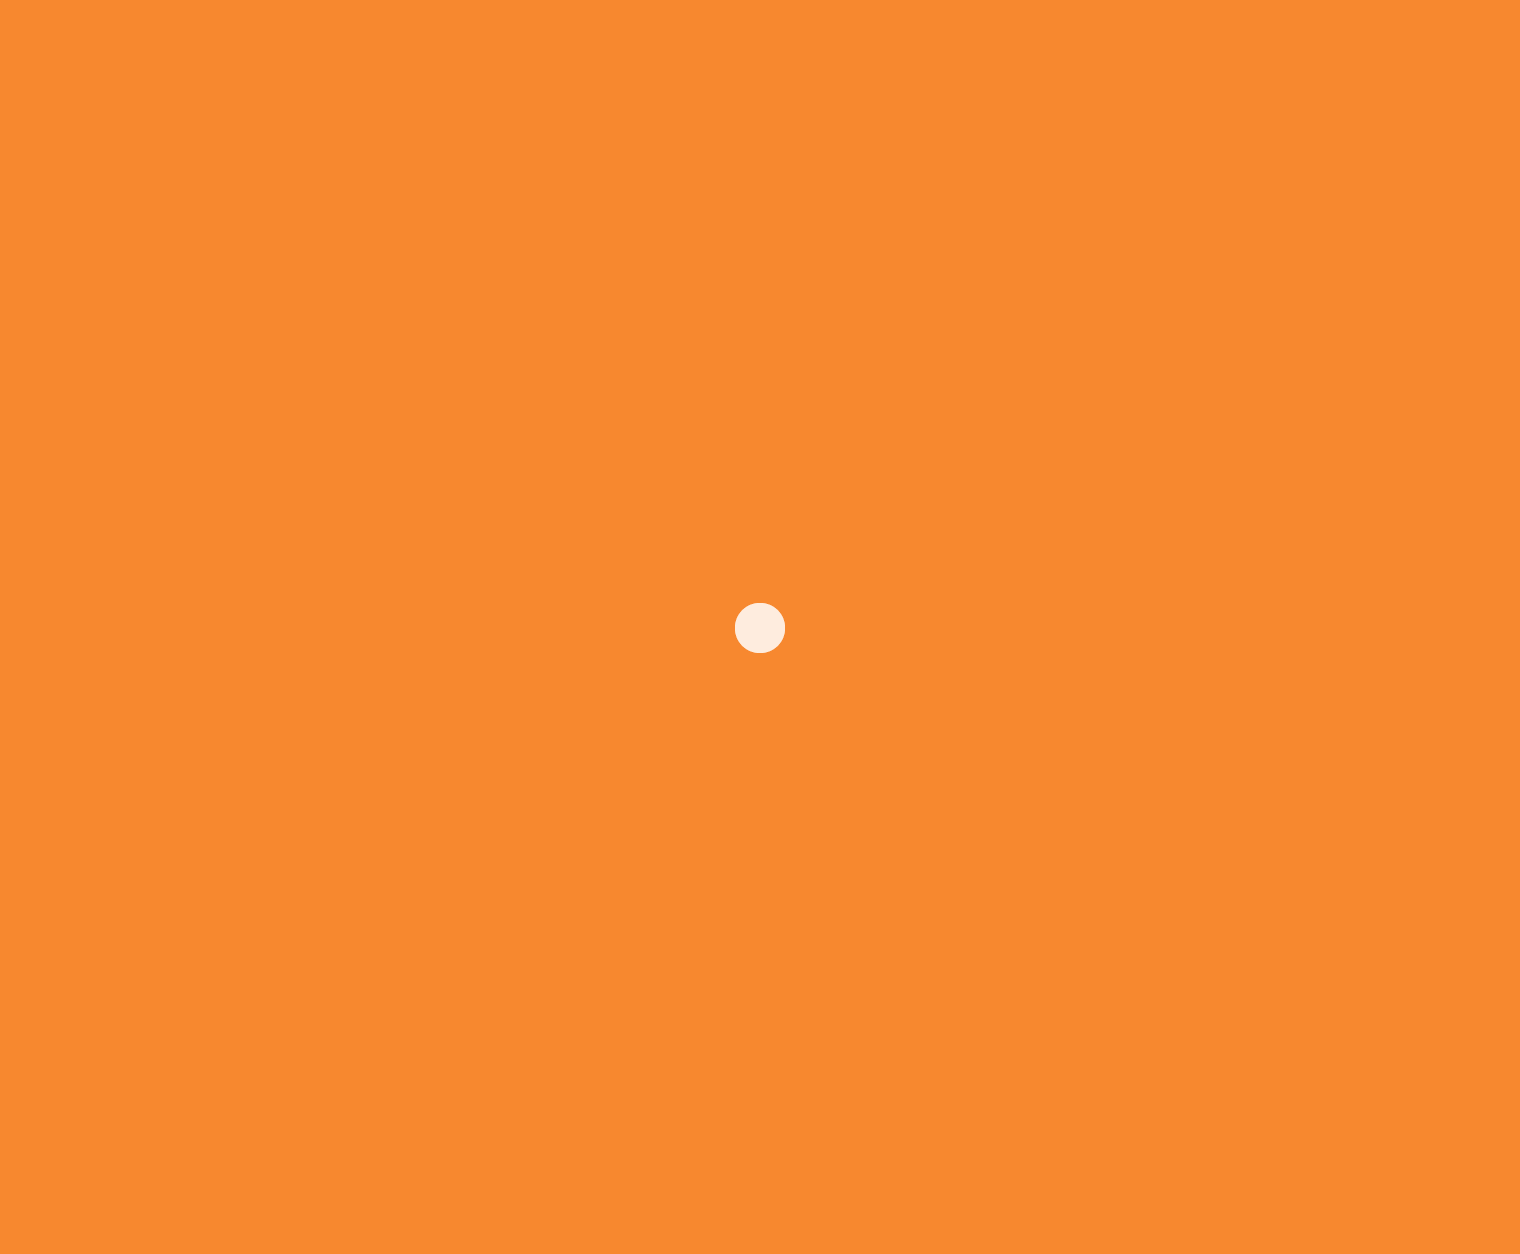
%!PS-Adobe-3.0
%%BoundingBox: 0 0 1520 1254
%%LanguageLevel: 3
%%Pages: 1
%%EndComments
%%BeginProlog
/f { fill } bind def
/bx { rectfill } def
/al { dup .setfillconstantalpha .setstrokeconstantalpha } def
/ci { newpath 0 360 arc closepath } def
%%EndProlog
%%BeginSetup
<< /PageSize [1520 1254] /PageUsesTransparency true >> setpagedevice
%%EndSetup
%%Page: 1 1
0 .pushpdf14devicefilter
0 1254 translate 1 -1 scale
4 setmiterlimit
0.969 0.533 0.184 setrgbcolor
0 0 1520 1254 bx
0.988 0.812 0.675 setrgbcolor
760 628 25 ci f
0.6 al
1 setgray
760 628 25 ci f
.poppdf14devicefilter showpage
%%EOF
